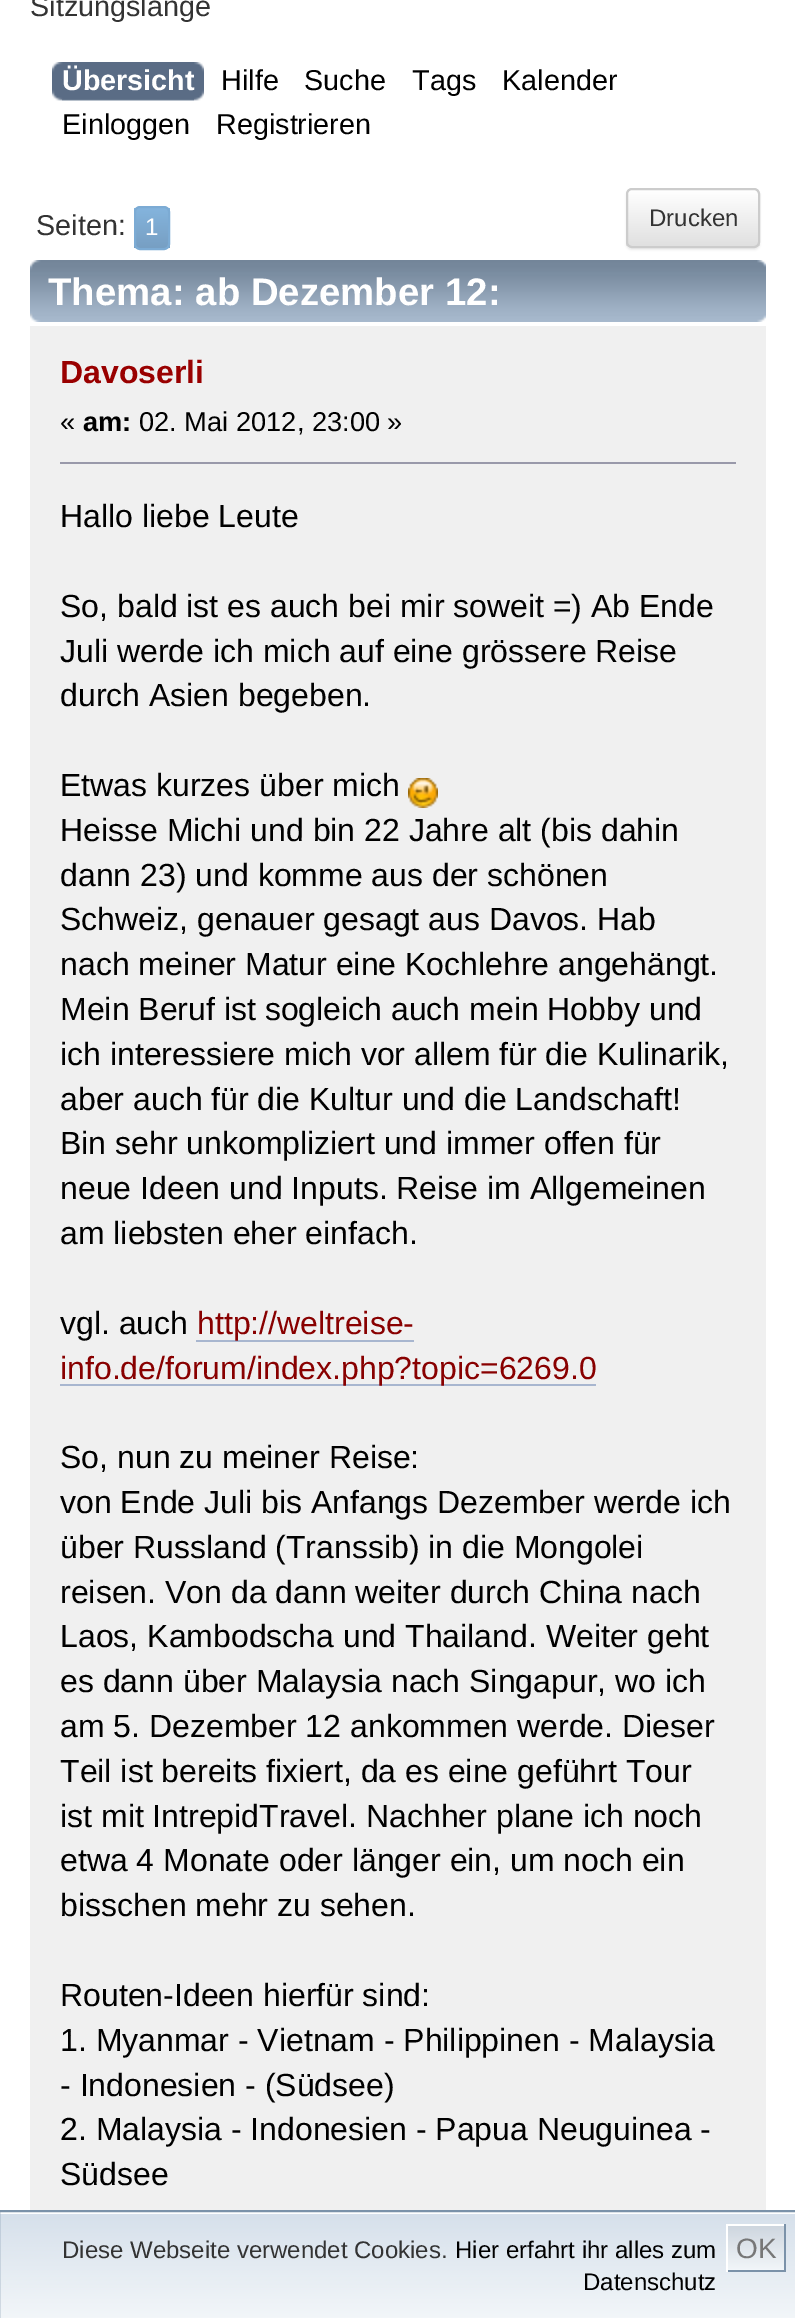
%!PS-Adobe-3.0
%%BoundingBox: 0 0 795 2318
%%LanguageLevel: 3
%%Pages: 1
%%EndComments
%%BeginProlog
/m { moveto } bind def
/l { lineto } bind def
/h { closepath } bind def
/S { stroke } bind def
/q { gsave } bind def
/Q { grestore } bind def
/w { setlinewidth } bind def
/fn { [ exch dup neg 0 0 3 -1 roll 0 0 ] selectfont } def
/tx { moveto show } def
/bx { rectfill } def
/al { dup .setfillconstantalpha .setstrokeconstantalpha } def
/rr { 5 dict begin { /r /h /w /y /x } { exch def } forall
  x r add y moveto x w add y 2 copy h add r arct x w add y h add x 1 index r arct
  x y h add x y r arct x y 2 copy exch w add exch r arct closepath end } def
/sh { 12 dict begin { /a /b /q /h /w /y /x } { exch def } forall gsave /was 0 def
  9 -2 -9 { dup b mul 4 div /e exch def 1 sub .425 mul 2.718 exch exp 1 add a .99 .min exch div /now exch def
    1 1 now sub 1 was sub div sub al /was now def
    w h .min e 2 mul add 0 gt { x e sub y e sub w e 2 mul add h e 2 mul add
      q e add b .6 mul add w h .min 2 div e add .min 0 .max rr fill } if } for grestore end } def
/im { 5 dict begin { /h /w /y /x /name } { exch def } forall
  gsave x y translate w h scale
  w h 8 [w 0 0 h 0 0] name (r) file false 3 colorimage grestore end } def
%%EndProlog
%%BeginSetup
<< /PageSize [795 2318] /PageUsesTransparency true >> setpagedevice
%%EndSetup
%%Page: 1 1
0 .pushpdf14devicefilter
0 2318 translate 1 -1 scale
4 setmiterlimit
1 setgray
0 0 795 2318 bx
/LiberationSans-Regular 28.75 fn
0.2 setgray
(Sitzungslänge) 30 16 tx
(image0.raw) 62 62 142 39 im
(image1.raw) 52 62 142 39 im
/LiberationSans-Bold 28.75 fn
1 setgray
(Übersicht) 62 90 tx
/LiberationSans-Regular 28.75 fn
0 setgray
(Hilfe) 221 90 tx
(Suche) 304 90 tx
(Tags) 412 90 tx
(Kalender) 502 90 tx
(Einloggen) 62 134 tx
(Registrieren) 216 134 tx
0.2 setgray
(Seiten:) 36 235 tx
q
134 206 36 44 6 rr clip newpath
q 134 208 m 170 208 l 170 248 l 134 248 l h clip newpath
<< /ShadingType 2 /ColorSpace /DeviceRGB /Coords [152 208 152 248] /Extend [true true] /Function << /FunctionType 2 /Domain [0 1] /C0 [0.518 0.706 0.867] /C1 [0.467 0.624 0.765] /N 1 >> >> shfill Q
Q
0.486 0.671 0.831 setrgbcolor
2 w
135 207 34 42 5 rr S
/LiberationSans-Regular 24 fn
1 setgray
(1) 145 235 tx
0 setgray
626 190 134 60 6 1 0.07 sh
q
626 188 134 60 6 rr clip newpath
q 626 190 m 760 190 l 760 246 l 626 246 l h clip newpath
<< /ShadingType 2 /ColorSpace /DeviceRGB /Coords [693 190 693 246] /Extend [true true] /Function << /FunctionType 2 /Domain [0 1] /C0 [1 1 1] /C1 [0.878 0.878 0.878] /N 1 >> >> shfill Q
Q
0.8 setgray
627 189 132 58 5 rr S
0.2 setgray
(Drucken) 649 226 tx
(image2.raw) 30 260 727 62 im
(image3.raw) 757 260 9 62 im
/LiberationSans-Bold 38.4 fn
1 setgray
(Thema: ab Dezember 12:) 48 305 tx
0.941 setgray
30 326 736 1884 bx
/LiberationSans-Bold 32 fn
0.6 0 0 setrgbcolor
(Davoserli) 60 383 tx
/LiberationSans-Regular 27.25 fn
0 setgray
(«) 60 431 tx
/LiberationSans-Bold 27.25 fn
(am:) 83 431 tx
/LiberationSans-Regular 27.25 fn
(02. Mai 2012, 23:00 ») 139 431 tx
0.6 0.6 0.667 setrgbcolor
60 462 676 2 bx
/LiberationSans-Regular 32 fn
0 setgray
(Hallo liebe Leute) 60 527 tx
(So, bald ist es auch bei mir soweit =\) Ab Ende) 60 617 tx
(Juli werde ich mich auf eine grössere Reise) 60 662 tx
(durch Asien begeben.) 60 706 tx
(Etwas kurzes über mich) 60 796 tx
(image4.raw) 408 778 30 30 im
(Heisse Michi und bin 22 Jahre alt \(bis dahin) 60 841 tx
(dann 23\) und komme aus der schönen) 60 886 tx
(Schweiz, genauer gesagt aus Davos. Hab) 60 930 tx
(nach meiner Matur eine Kochlehre angehängt.) 60 975 tx
(Mein Beruf ist sogleich auch mein Hobby und) 60 1020 tx
(ich interessiere mich vor allem für die Kulinarik,) 60 1065 tx
(aber auch für die Kultur und die Landschaft!) 60 1110 tx
(Bin sehr unkompliziert und immer offen für) 60 1154 tx
(neue Ideen und Inputs. Reise im Allgemeinen) 60 1199 tx
(am liebsten eher einfach.) 60 1244 tx
(vgl. auch) 60 1334 tx
0.659 0.714 0.812 setrgbcolor
196 1340 218 2 bx
0.533 0 0 setrgbcolor
(http://weltreise-) 197 1334 tx
0.659 0.714 0.812 setrgbcolor
60 1384 536 2 bx
0.533 0 0 setrgbcolor
(info.de/forum/index.php?topic=6269.0) 60 1379 tx
0 setgray
(So, nun zu meiner Reise:) 60 1468 tx
(von Ende Juli bis Anfangs Dezember werde ich) 60 1513 tx
(über Russland \(Transsib\) in die Mongolei) 60 1558 tx
(reisen. Von da dann weiter durch China nach) 60 1603 tx
(Laos, Kambodscha und Thailand. Weiter geht) 60 1647 tx
(es dann über Malaysia nach Singapur, wo ich) 60 1692 tx
(am 5. Dezember 12 ankommen werde. Dieser) 60 1737 tx
(Teil ist bereits fixiert, da es eine geführt Tour) 60 1782 tx
(ist mit IntrepidTravel. Nachher plane ich noch) 60 1827 tx
(etwa 4 Monate oder länger ein, um noch ein) 60 1871 tx
(bisschen mehr zu sehen.) 60 1916 tx
(Routen-Ideen hierfür sind:) 60 2006 tx
(1. Myanmar - Vietnam - Philippinen - Malaysia) 60 2051 tx
(- Indonesien - \(Südsee\)) 60 2096 tx
(2. Malaysia - Indonesien - Papua Neuguinea -) 60 2140 tx
(Südsee) 60 2185 tx
q 0 2214 m 795 2214 l 795 2318 l 0 2318 l h clip newpath
<< /ShadingType 2 /ColorSpace /DeviceRGB /Coords [398 2214 398 2318] /Extend [true true] /Function << /FunctionType 2 /Domain [0 1] /C0 [0.839 0.878 0.922] /C1 [0.949 0.965 0.976] /N 1 >> >> shfill Q
0.482 0.573 0.663 setrgbcolor
-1 2211 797 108 rectstroke
/LiberationSans-Regular 24 fn
0.2 setgray
(Diese Webseite verwendet Cookies.) 62 2258 tx
0 setgray
(Hier erfahrt ihr alles zum) 455 2258 tx
(Datenschutz) 583 2290 tx
q 728 2226 m 784 2226 l 784 2270 l 728 2270 l h clip newpath
<< /ShadingType 2 /ColorSpace /DeviceRGB /Coords [728 2226 728 2270] /Extend [true true] /Function << /FunctionType 2 /Domain [0 1] /C0 [0.808 0.839 0.875] /C1 [0.949 0.965 0.976] /N 1 >> >> shfill Q
1 setgray
726 2224 60 2 bx
0.482 0.573 0.663 setrgbcolor
784 2224 2 48 bx
726 2270 60 2 bx
1 setgray
726 2224 2 48 bx
/LiberationSans-Regular 28 fn
0.467 setgray
(OK) 736 2258 tx
.poppdf14devicefilter showpage
%%EOF
